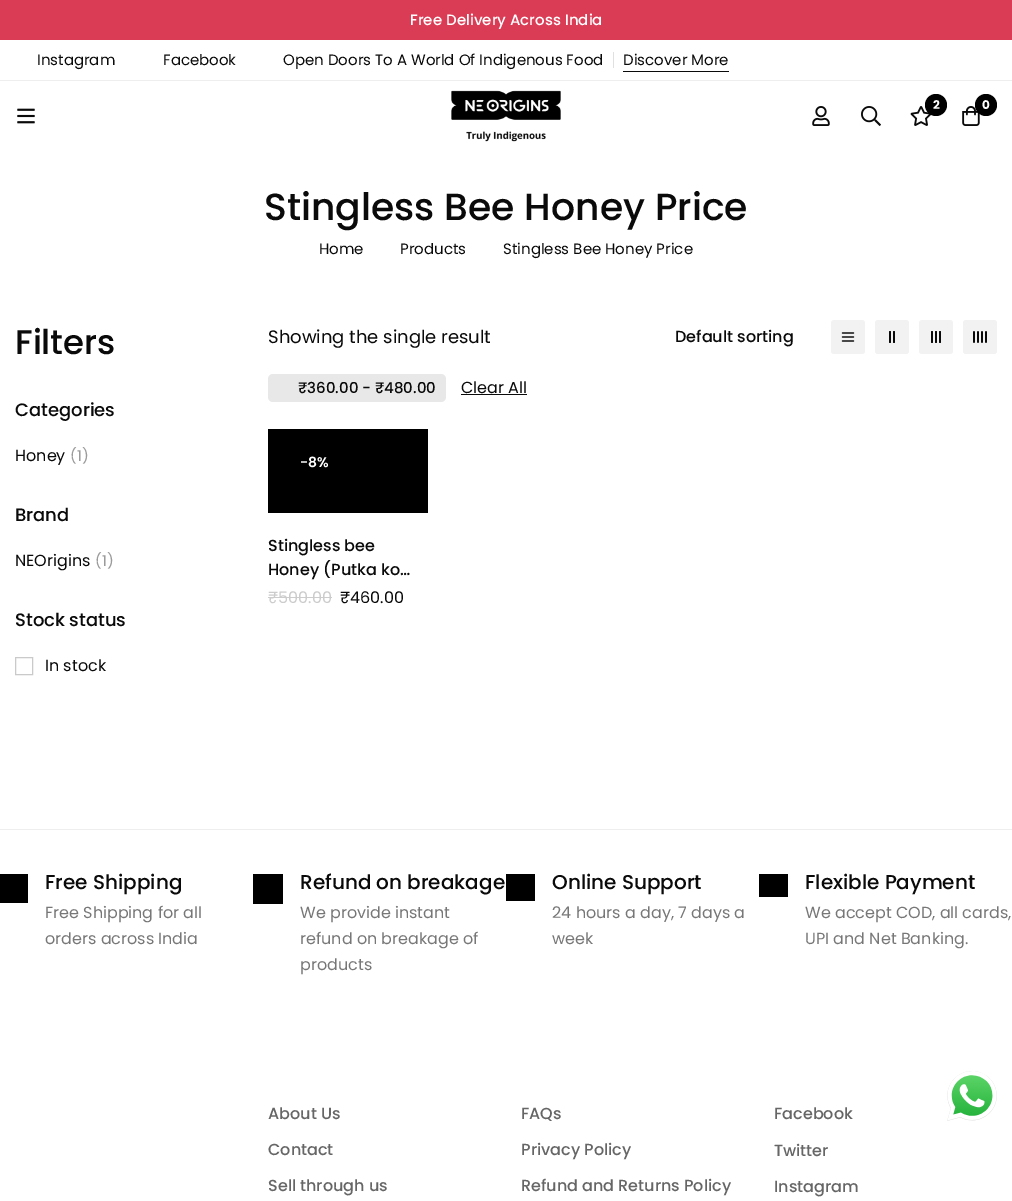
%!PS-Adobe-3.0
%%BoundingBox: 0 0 1012 1201
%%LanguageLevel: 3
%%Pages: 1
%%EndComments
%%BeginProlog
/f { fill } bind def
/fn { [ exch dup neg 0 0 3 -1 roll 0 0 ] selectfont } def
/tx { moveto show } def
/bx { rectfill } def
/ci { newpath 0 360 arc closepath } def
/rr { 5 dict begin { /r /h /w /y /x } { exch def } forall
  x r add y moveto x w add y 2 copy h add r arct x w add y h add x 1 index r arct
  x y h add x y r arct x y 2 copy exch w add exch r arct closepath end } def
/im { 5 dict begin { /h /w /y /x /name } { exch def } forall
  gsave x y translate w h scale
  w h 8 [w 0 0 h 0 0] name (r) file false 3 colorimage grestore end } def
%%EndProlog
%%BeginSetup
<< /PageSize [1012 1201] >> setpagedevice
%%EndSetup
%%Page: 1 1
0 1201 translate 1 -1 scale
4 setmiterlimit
1 setgray
0 0 1012 1201 bx
0.859 0.235 0.333 setrgbcolor
0 0 1012 40 bx
/Poppins-Medium 15 fn
1 setgray
(Free Delivery Across India) 410 25 tx
0.933 setgray
0 80 1012 1 bx
/Poppins-Regular 15 fn
0.039 setgray
(Instagram) 37 65 tx
(Facebook) 163 65 tx
(Open Doors To A World Of Indigenous Food) 283 65 tx
0.878 setgray
613 52 1 16 bx
0.039 setgray
(Discover More) 623 65 tx
623 71 106 1 bx
(image0.raw) 451 90 110 52 im
(image1.raw) 910 106 22 20 im
0 setgray
936 105 11 ci f
/Poppins-Bold 12 fn
1 setgray
(2) 933 109 tx
(image2.raw) 962 106 18 20 im
0 setgray
986 105 11 ci f
1 setgray
(0) 982 109 tx
(image3.raw) 812 106 18 20 im
(image4.raw) 861 106 20 20 im
(image5.raw) 17 108 18 16 im
/Poppins-Medium 37.75 fn
0.039 setgray
(Stingless Bee Honey Price) 264 220 tx
/Poppins-Regular 15 fn
(Home) 319 254 tx
(Products) 400 254 tx
(Stingless Bee Honey Price) 503 254 tx
/Poppins-Medium 34 fn
(Filters) 15 354 tx
/Poppins-Medium 18 fn
(Categories) 15 416 tx
/Poppins-Regular 16 fn
(Honey) 15 461 tx
/Poppins-Regular 15 fn
0.608 setgray
(\(1\)) 70 461 tx
/Poppins-Medium 18 fn
0.039 setgray
(Brand) 15 521 tx
/Poppins-Regular 16 fn
(NEOrigins) 15 566 tx
/Poppins-Regular 15 fn
0.608 setgray
(\(1\)) 95 566 tx
/Poppins-Medium 18 fn
0.039 setgray
(Stock status) 15 626 tx
0.792 setgray
15.5 657.5 17 17 rectstroke
/Poppins-Regular 16 fn
0.039 setgray
(In stock) 45 671 tx
/Poppins-Regular 18 fn
(Showing the single result) 268 343 tx
/Poppins-Medium 16 fn
(Default sorting) 675 342 tx
0.949 setgray
831 320 34 34 3 rr f
(image6.raw) 841 332 14 10 im
875 320 34 34 3 rr f
0.039 setgray
889 331 2 12 1 rr f
893 331 2 12 1 rr f
0.949 setgray
919 320 34 34 3 rr f
0.039 setgray
931 331 2 12 1 rr f
935 331 2 12 1 rr f
939 331 2 12 1 rr f
0.949 setgray
963 320 34 34 3 rr f
(image7.raw) 973 331 14 12 im
0.91 setgray
268 374 178 28 5 rr f
/Poppins-Medium 15 fn
0.039 setgray
(₹360.00 - ₹480.00) 298 393 tx
/Poppins-Regular 16 fn
(Clear All) 461 393 tx
461 394 66 1 bx
0 setgray
268 429 160 84 bx
/Poppins-SemiBold 14 fn
1 setgray
(-8%) 300 467 tx
/Poppins-Medium 16 fn
0.039 setgray
(Stingless bee) 268 551 tx
(Honey \(Putka ko…) 268 575 tx
/Poppins-Regular 16 fn
0.804 0.8 0.8 setrgbcolor
(₹500.00) 268 603 tx
268 597 64 1 bx
0.039 setgray
(₹460.00) 340 603 tx
0.933 setgray
0 829 1012 1 bx
0 setgray
0 874 28 29 bx
/Poppins-Medium 20 fn
0.039 setgray
(Free Shipping) 45 889 tx
/Poppins-Regular 16 fn
0.467 setgray
(Free Shipping for all) 45 918 tx
(orders across India) 45 944 tx
0 setgray
253 874 30 30 bx
/Poppins-Medium 20 fn
0.039 setgray
(Refund on breakage) 300 889 tx
/Poppins-Regular 16 fn
0.467 setgray
(We provide instant) 300 918 tx
(refund on breakage of) 300 944 tx
(products) 300 970 tx
0 setgray
506 874 29 27 bx
/Poppins-Medium 20 fn
0.039 setgray
(Online Support) 552 889 tx
/Poppins-Regular 16 fn
0.467 setgray
(24 hours a day, 7 days a) 552 918 tx
(week) 552 944 tx
0 setgray
759 874 29 23 bx
/Poppins-Medium 20 fn
0.039 setgray
(Flexible Payment) 805 889 tx
/Poppins-Regular 16 fn
0.467 setgray
(We accept COD, all cards,) 805 918 tx
(UPI and Net Banking.) 805 944 tx
/Poppins-Medium 16 fn
0.4 setgray
(About Us) 268 1119 tx
(Contact) 268 1155 tx
(Sell through us) 268 1191 tx
(FAQs) 521 1119 tx
(Privacy Policy) 521 1155 tx
(Refund and Returns Policy) 521 1191 tx
(Facebook) 774 1119 tx
(Twitter) 774 1156 tx
(Instagram) 774 1192 tx
(image8.raw) 947 1071 50 50 im
showpage
%%EOF
